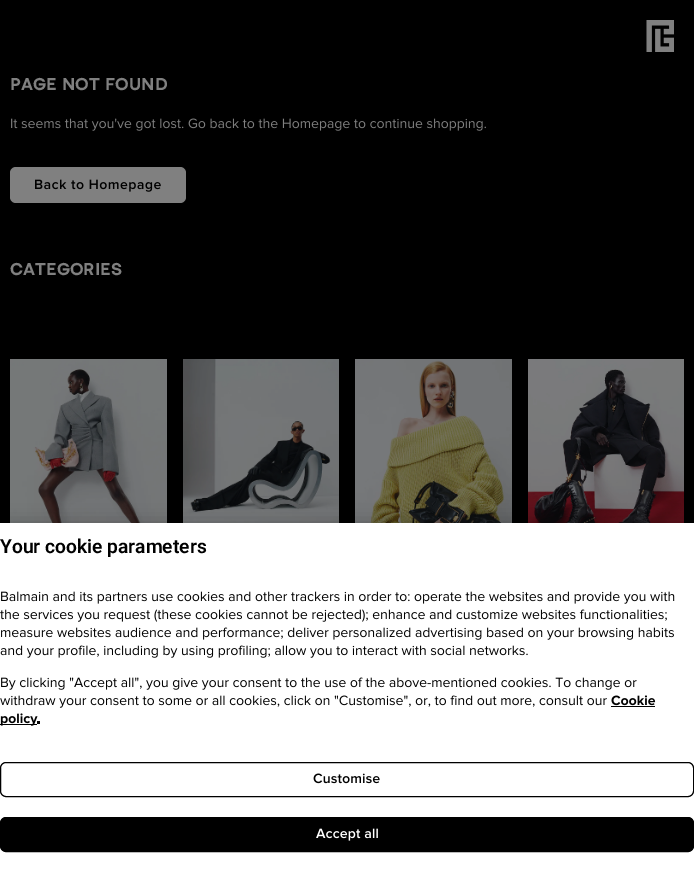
%!PS-Adobe-3.0
%%BoundingBox: 0 0 694 874
%%LanguageLevel: 3
%%Pages: 1
%%EndComments
%%BeginProlog
/f { fill } bind def
/S { stroke } bind def
/q { gsave } bind def
/Q { grestore } bind def
/fn { [ exch dup neg 0 0 3 -1 roll 0 0 ] selectfont } def
/tx { moveto show } def
/bx { rectfill } def
/al { dup .setfillconstantalpha .setstrokeconstantalpha } def
/rr { 5 dict begin { /r /h /w /y /x } { exch def } forall
  x r add y moveto x w add y 2 copy h add r arct x w add y h add x 1 index r arct
  x y h add x y r arct x y 2 copy exch w add exch r arct closepath end } def
/sh { 12 dict begin { /a /b /q /h /w /y /x } { exch def } forall gsave /was 0 def
  9 -2 -9 { dup b mul 4 div /e exch def 1 sub .425 mul 2.718 exch exp 1 add a .99 .min exch div /now exch def
    1 1 now sub 1 was sub div sub al /was now def
    w h .min e 2 mul add 0 gt { x e sub y e sub w e 2 mul add h e 2 mul add
      q e add b .6 mul add w h .min 2 div e add .min 0 .max rr fill } if } for grestore end } def
/im { 5 dict begin { /h /w /y /x /name } { exch def } forall
  gsave x y translate w h scale
  w h 8 [w 0 0 h 0 0] name (r) file false 3 colorimage grestore end } def
%%EndProlog
%%BeginSetup
<< /PageSize [694 874] /PageUsesTransparency true >> setpagedevice
%%EndSetup
%%Page: 1 1
0 .pushpdf14devicefilter
0 874 translate 1 -1 scale
4 setmiterlimit
0 setgray
0 0 694 874 bx
(image0.raw) 646 20 28 32 im
/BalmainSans-Medium 16 fn
0.502 setgray
(PAGE NOT FOUND) 10 90 tx
(image1.raw) 11 118 475 13 im
10 167 176 36 6 rr f
(image2.raw) 35 179 126 13 im
(Categories) 10 275 tx
(image3.raw) 10 359 157 164 im
(image4.raw) 183 359 156 164 im
(image5.raw) 355 359 157 164 im
(image6.raw) 528 359 156 164 im
0 setgray
0 523 694 351 0 9 0.2 sh
1 setgray
0 523 694 351 bx
/Roboto-SemiBold 19.25 fn
0 setgray
(Your cookie parameters) 0 553 tx
(image7.raw) 1 591 674 13 im
(image8.raw) 0 609 667 13 im
(image9.raw) 1 627 673 13 im
(image10.raw) 0 645 528 13 im
(image11.raw) 1 677 636 13 im
(image12.raw) 0 695 607 13 im
(image13.raw) 611 695 45 11 im
611 706 44 1 bx
0 724 37 1 bx
(image14.raw) 0 713 38 13 im
0.02 setgray
37 721 3 3 bx
0 setgray
0.5 762.5 693 34 5.5 rr S
(image15.raw) 313 773 67 11 im
0.5 817.5 693 34 5.5 rr q f Q
S
(image16.raw) 316 828 62 13 im
.poppdf14devicefilter showpage
%%EOF
